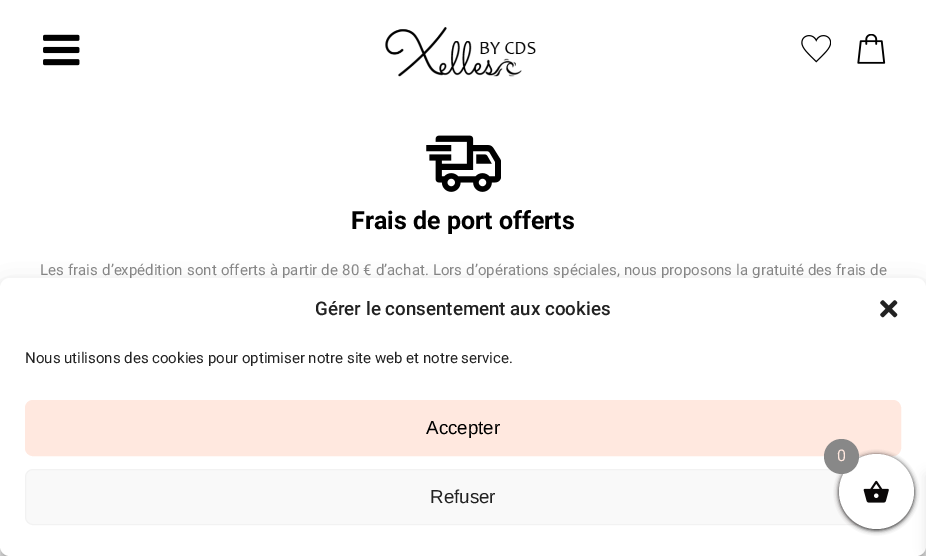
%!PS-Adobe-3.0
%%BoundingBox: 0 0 926 556
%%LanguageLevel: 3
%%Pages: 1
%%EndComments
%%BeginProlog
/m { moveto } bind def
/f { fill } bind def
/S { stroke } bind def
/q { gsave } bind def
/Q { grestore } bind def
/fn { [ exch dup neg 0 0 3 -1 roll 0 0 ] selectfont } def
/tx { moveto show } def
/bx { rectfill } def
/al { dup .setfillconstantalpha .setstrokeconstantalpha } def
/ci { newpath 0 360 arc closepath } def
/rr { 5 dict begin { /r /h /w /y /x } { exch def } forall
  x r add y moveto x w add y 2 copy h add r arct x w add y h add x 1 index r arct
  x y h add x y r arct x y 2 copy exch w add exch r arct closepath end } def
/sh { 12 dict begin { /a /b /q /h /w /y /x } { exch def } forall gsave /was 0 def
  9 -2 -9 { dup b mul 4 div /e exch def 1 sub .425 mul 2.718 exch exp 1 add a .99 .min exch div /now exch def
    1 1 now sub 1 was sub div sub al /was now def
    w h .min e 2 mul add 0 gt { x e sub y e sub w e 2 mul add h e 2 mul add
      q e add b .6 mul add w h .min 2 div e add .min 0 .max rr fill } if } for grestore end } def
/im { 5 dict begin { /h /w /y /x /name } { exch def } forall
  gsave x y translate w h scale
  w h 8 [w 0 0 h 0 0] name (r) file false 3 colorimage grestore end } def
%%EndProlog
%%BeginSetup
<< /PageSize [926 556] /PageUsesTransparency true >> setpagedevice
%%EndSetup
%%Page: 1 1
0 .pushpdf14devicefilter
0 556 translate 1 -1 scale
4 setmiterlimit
1 setgray
0 0 926 556 bx
(image0.raw) 43 34 37 32 im
(image1.raw) 385 27 151 50 im
(image2.raw) 801 35 30 28 im
(image3.raw) 857 34 29 30 im
(image4.raw) 426 135 75 57 im
/Roboto-Bold 25 fn
0 setgray
(Frais de port offerts) 351 229 tx
/Roboto-Regular 15 fn
0.533 setgray
40 275 m 0.5 0 32 (Les frais d’expédition sont offerts à partir de 80 € d’achat. Lors d’opérations spéciales, nous proposons la gratuité des frais de) widthshow
0 setgray
0 285 926 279 10 4 0.23 sh
0 290 926 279 10 12.5 0.19 sh
1 setgray
0 278 926 278 10 rr f
/Roboto-Medium 18.75 fn
0.133 setgray
(Gérer le consentement aux cookies) 315 315 tx
(image5.raw) 880 300 18 18 im
/Roboto-Regular 15 fn
(Nous utilisons des cookies pour optimiser notre site web et notre service.) 25 363 tx
1 0.91 0.875 setrgbcolor
25.5 400.5 875 55 7.5 rr q f Q
S
/LiberationSans-Regular 18.75 fn
0 setgray
(Accepter) 426 434 tx
0.976 setgray
25.5 469.5 875 55 7.5 rr q f Q
0.949 setgray
S
0.133 setgray
(Refuser) 430 503 tx
0.039 0.031 0.031 setrgbcolor
839 455 75 75 37.5 2.5 1 sh
0 setgray
926 475 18 75 0 6 0.1 sh
1 setgray
876.5 491.5 37.5 ci f
0.533 setgray
841.5 456.5 17.5 ci f
/Roboto-Regular 16 fn
1 0.91 0.875 setrgbcolor
(0) 837 461 tx
(image6.raw) 863 480 26 23 im
.poppdf14devicefilter showpage
%%EOF
